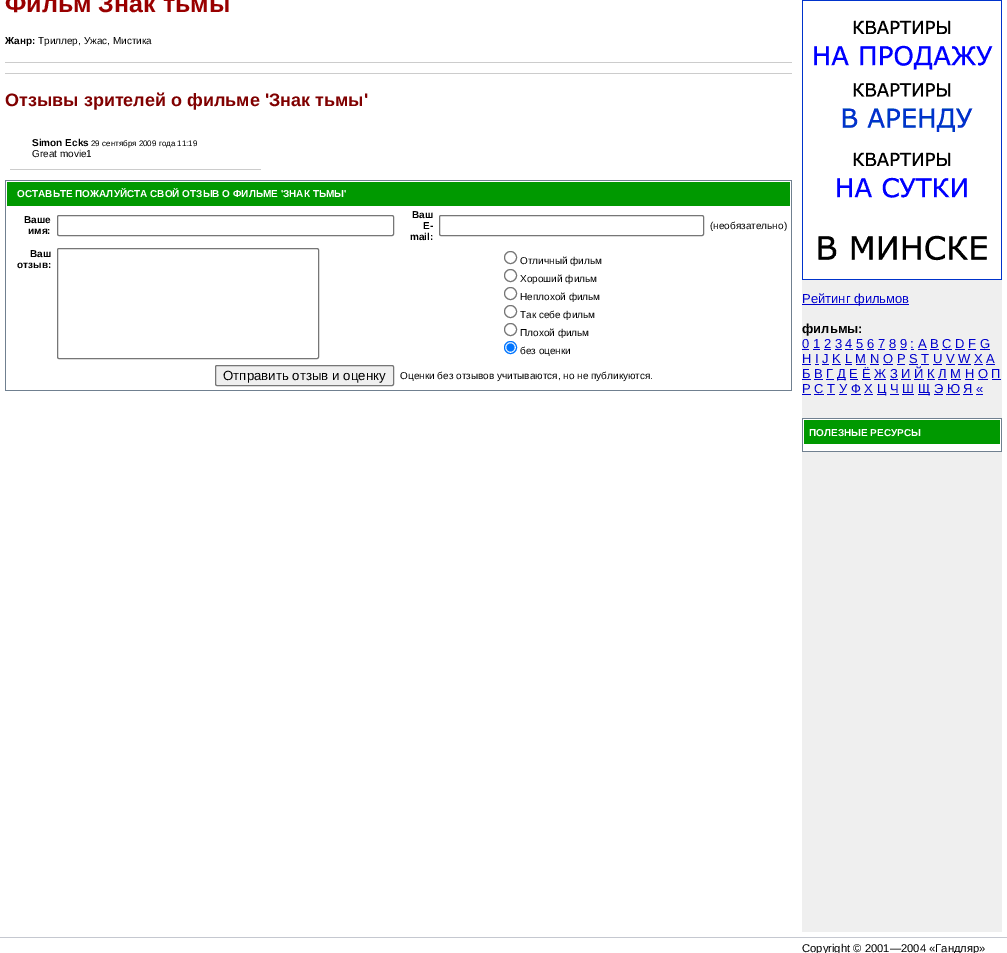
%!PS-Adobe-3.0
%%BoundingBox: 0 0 1007 953
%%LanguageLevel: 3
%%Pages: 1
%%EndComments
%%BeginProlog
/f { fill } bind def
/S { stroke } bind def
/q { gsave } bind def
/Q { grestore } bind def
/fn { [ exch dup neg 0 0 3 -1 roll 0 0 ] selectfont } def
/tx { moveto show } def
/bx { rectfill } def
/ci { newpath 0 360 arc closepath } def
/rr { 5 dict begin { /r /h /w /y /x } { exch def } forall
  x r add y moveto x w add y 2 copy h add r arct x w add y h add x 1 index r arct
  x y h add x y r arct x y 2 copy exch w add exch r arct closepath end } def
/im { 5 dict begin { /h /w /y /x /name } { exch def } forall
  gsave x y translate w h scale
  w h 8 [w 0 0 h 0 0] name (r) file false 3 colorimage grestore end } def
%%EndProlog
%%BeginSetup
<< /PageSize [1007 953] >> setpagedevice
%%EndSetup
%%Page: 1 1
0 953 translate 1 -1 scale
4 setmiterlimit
1 setgray
0 0 1007 953 bx
/LiberationSans-Bold 25 fn
0.6 0 0 setrgbcolor
(Фильм Знак тьмы) 5 12 tx
/LiberationSans-Bold 10 fn
0 setgray
(Жанр:) 5 44 tx
/LiberationSans-Regular 10 fn
(Триллер, Ужас, Мистика) 38 44 tx
0.8 setgray
5 62 787 1 bx
5 73 787 1 bx
/LiberationSans-Bold 18 fn
0.502 0 0 setrgbcolor
(Отзывы зрителей о фильме 'Знак тьмы') 5 106 tx
/LiberationSans-Bold 10 fn
0 setgray
(Simon Ecks) 32 146 tx
/LiberationSans-Regular 8 fn
(29 сентября 2009 года 11:19) 91 146 tx
/LiberationSans-Regular 10 fn
(Great movie1) 32 157 tx
0.8 setgray
10 169 251 1 bx
0.439 0.502 0.565 setrgbcolor
5 180 787 211 bx
1 setgray
6 181 785 209 bx
0 0.6 0 setrgbcolor
7 182 783 24 bx
/LiberationSans-Bold 10 fn
1 setgray
(ОСТАВЬТЕ ПОЖАЛУЙСТА СВОЙ ОТЗЫВ О ФИЛЬМЕ 'ЗНАК ТЬМЫ') 17 197 tx
0 setgray
(Ваше) 24 223 tx
(имя:) 28 234 tx
0.463 setgray
57.5 215.5 336 20 1.5 rr S
0 setgray
(Ваш) 412 218 tx
(E-) 423 229 tx
(mail:) 410 240 tx
0.463 setgray
439.5 215.5 264 20 1.5 rr S
/LiberationSans-Regular 10 fn
0 setgray
(\(необязательно\)) 710 229 tx
/LiberationSans-Bold 10 fn
(Ваш) 30 257 tx
(отзыв:) 17 268 tx
0.463 setgray
57.5 248.5 261 110 1.5 rr S
510.5 257.5 6 ci S
/LiberationSans-Regular 10 fn
0 setgray
(Отличный фильм) 520 264 tx
0.463 setgray
510.5 275.5 6 ci S
0 setgray
(Хороший фильм) 520 282 tx
0.463 setgray
510.5 293.5 6 ci S
0 setgray
(Неплохой фильм) 520 300 tx
0.463 setgray
510.5 311.5 6 ci S
0 setgray
(Так себе фильм) 520 318 tx
0.463 setgray
510.5 329.5 6 ci S
0 setgray
(Плохой фильм) 520 336 tx
0 0.459 1 setrgbcolor
510.5 347.5 6 ci S
510.5 347.5 4 ci f
0 setgray
(без оценки) 520 354 tx
0.937 setgray
215.5 365.5 178 20 1.5 rr q f Q
0.463 setgray
S
/LiberationSans-Regular 13.25 fn
0 setgray
(Отправить отзыв и оценку) 223 380 tx
/LiberationSans-Regular 10 fn
(Оценки без отзывов учитываются, но не публикуются.) 400 379 tx
0.937 setgray
802 280 200 652 bx
(image0.raw) 802 0 200 280 im
0 0 0.8 setrgbcolor
802 304 107 1 bx
/LiberationSans-Regular 13 fn
(Рейтинг фильмов) 802 303 tx
/LiberationSans-Bold 13 fn
0 setgray
(фильмы:) 802 333 tx
/LiberationSans-Regular 13 fn
0 0 0.8 setrgbcolor
(0 1 2 3 4 5 6 7 8 9 : A B C D F G) 802 348 tx
802 349 7 1 bx
813 349 7 1 bx
824 349 7 1 bx
835 349 7 1 bx
845 349 8 1 bx
856 349 8 1 bx
867 349 7 1 bx
878 349 7 1 bx
889 349 7 1 bx
900 349 7 1 bx
911 349 3 1 bx
918 349 9 1 bx
930 349 9 1 bx
942 349 10 1 bx
955 349 10 1 bx
968 349 8 1 bx
980 349 10 1 bx
(H I J K L M N O P S T U V W X А) 802 363 tx
802 364 9 1 bx
815 364 4 1 bx
822 364 7 1 bx
832 364 9 1 bx
845 364 7 1 bx
856 364 10 1 bx
870 364 9 1 bx
883 364 10 1 bx
897 364 8 1 bx
909 364 9 1 bx
921 364 8 1 bx
933 364 9 1 bx
946 364 9 1 bx
958 364 13 1 bx
974 364 9 1 bx
986 364 9 1 bx
(Б В Г) 802 378 tx
802 379 9 1 bx
814 379 9 1 bx
826 379 8 1 bx
837 379 9 1 bx
(Д Е Ё Ж З И Й К Л М Н О П) 837 378 tx
850 379 8 1 bx
862 379 9 1 bx
874 379 12 1 bx
890 379 8 1 bx
901 379 10 1 bx
914 379 10 1 bx
927 379 8 1 bx
938 379 9 1 bx
951 379 10 1 bx
965 379 9 1 bx
978 379 10 1 bx
992 379 9 1 bx
(Р С Т У Ф Х) 802 393 tx
802 394 9 1 bx
814 394 10 1 bx
827 394 8 1 bx
839 394 8 1 bx
851 394 10 1 bx
864 394 9 1 bx
877 394 9 1 bx
(Ц Ч Ш) 877 393 tx
890 394 9 1 bx
902 394 12 1 bx
918 394 12 1 bx
(Щ Э Ю Я «) 918 393 tx
934 394 9 1 bx
946 394 14 1 bx
963 394 10 1 bx
976 394 7 1 bx
0.439 0.502 0.565 setrgbcolor
802 418 200 34 bx
1 setgray
803 419 198 32 bx
0 0.6 0 setrgbcolor
804 420 196 24 bx
/LiberationSans-Bold 10 fn
1 setgray
(ПОЛЕЗНЫЕ РЕСУРСЫ) 809 436 tx
0.773 0.784 0.816 setrgbcolor
0 937 1007 1 bx
/LiberationSans-Regular 11.25 fn
0 setgray
(Copyright © 2001—2004 «Гандляр») 802 952 tx
showpage
%%EOF
